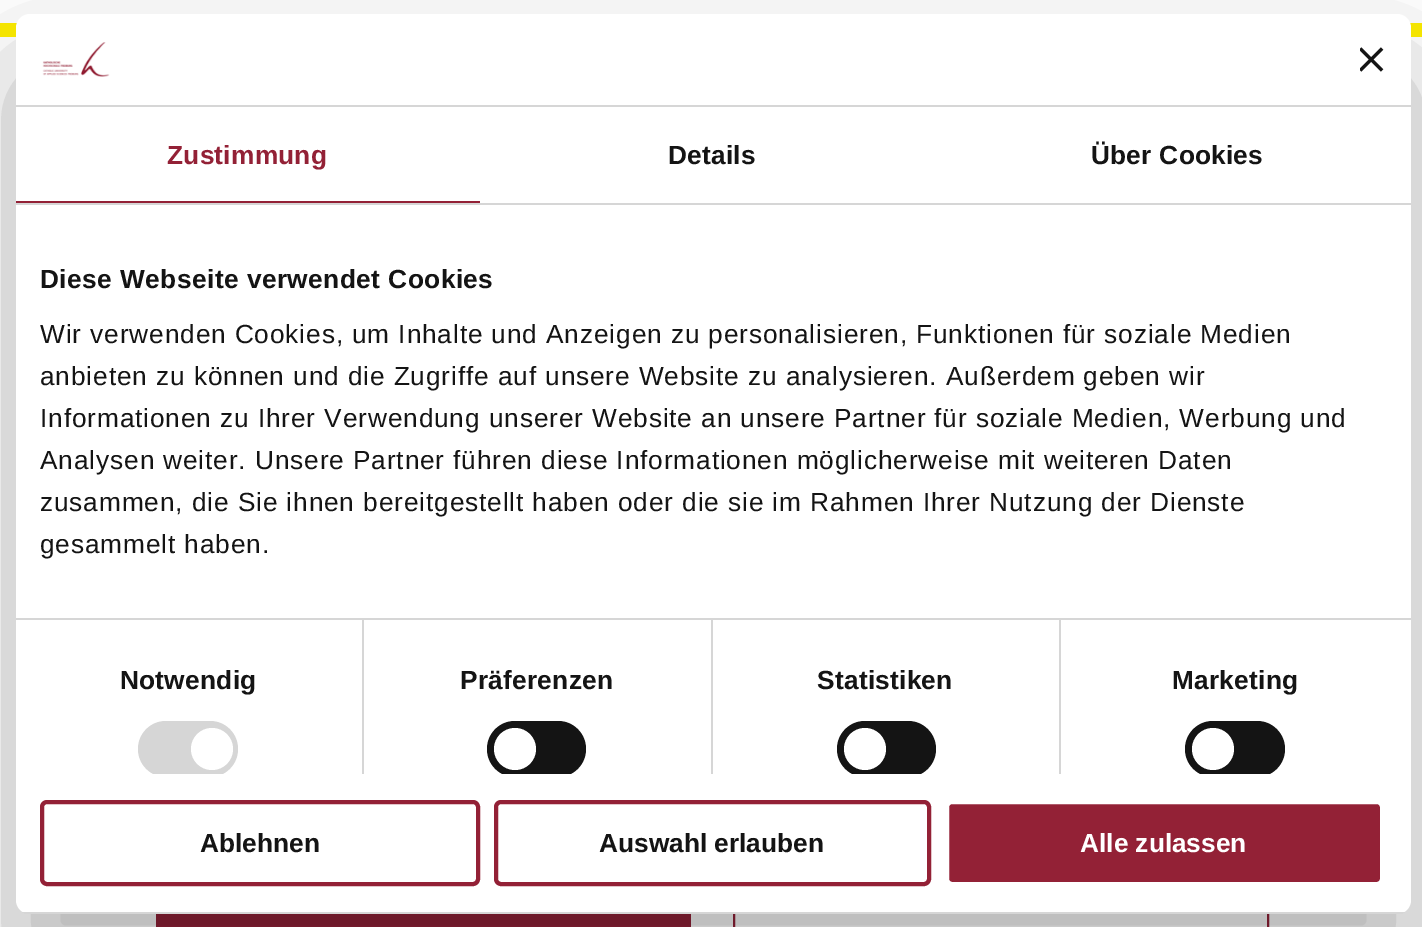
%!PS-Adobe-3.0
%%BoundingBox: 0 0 1422 927
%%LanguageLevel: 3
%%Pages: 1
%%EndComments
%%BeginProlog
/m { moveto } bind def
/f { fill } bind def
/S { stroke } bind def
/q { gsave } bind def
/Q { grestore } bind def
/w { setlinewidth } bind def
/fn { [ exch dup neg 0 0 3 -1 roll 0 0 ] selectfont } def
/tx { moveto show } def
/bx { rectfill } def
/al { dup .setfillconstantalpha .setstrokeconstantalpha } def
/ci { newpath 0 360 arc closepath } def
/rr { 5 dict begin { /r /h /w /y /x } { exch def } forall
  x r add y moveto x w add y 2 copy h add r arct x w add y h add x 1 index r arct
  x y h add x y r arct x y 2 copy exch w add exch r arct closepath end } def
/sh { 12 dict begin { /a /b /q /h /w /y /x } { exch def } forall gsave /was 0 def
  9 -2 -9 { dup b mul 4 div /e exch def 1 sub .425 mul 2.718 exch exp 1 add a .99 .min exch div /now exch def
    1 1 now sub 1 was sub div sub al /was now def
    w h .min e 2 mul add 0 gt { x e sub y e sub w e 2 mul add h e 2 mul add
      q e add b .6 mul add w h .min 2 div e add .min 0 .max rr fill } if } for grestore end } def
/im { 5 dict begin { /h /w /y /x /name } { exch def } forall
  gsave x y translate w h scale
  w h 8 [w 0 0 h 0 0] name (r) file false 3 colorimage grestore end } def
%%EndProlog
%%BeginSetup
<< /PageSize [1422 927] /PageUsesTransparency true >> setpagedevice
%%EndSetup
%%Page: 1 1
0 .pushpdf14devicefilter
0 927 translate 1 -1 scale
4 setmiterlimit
1 setgray
0 0 1422 927 bx
1 0.933 0 setrgbcolor
0 23 1422 14 bx
0.576 0.129 0.212 setrgbcolor
156 914 535 13 bx
2 w
734 773 534 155 rectstroke
0 setgray
16 70 1395 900 14 59.5 0.3 sh
1 setgray
16 14 1395 900 14 rr f
0.839 setgray
16 105 1395 2 bx
(image0.raw) 42 42 68 35 im
(image1.raw) 1360 47 24 25 im
16 203 1395 2 bx
0.576 0.129 0.212 setrgbcolor
16 201 464 2 bx
/LiberationSans-Bold 26.25 fn
167 164 m 0.25 0 (Zustimmung) ashow
0.078 setgray
668 164 m 0.25 0 (Details) ashow
1091 164 m 0.25 0 (Über Cookies) ashow
0.839 setgray
16 618 1395 2 bx
0.078 setgray
40 288 m 0.45 0 (Diese Webseite verwendet Cookies) ashow
/LiberationSans-Regular 26.25 fn
40 343 m 0.88 0 (Wir verwenden Cookies, um Inhalte und Anzeigen zu personalisieren, Funktionen für soziale Medien) ashow
40 385 m 0.88 0 (anbieten zu können und die Zugriffe auf unsere Website zu analysieren. Außerdem geben wir) ashow
40 427 m 0.88 0 (Informationen zu Ihrer Verwendung unserer Website an unsere Partner für soziale Medien, Werbung und) ashow
40 469 m 0.88 0 (Analysen weiter. Unsere Partner führen diese Informationen möglicherweise mit weiteren Daten) ashow
40 511 m 0.88 0 (zusammen, die Sie ihnen bereitgestellt haben oder die sie im Rahmen Ihrer Nutzung der Dienste) ashow
40 553 m 0.88 0 (gesammelt haben.) ashow
0.839 setgray
362 620 2 154 bx
/LiberationSans-Bold 26.25 fn
0.078 setgray
120 689 m 0.25 0 (Notwendig) ashow
q
16 205 1395 569 rectclip
0.839 setgray
138 721 100 56 28 rr f
Q
1 setgray
212 749 21 ci f
0.839 setgray
711 620 2 154 bx
0.078 setgray
460 689 m 0.25 0 (Präferenzen) ashow
q
16 205 1395 569 rectclip
487 721 99 56 28 rr f
Q
1 setgray
515 749 21 ci f
0.839 setgray
1059 620 2 154 bx
0.078 setgray
817 689 m 0.25 0 (Statistiken) ashow
q
16 205 1395 569 rectclip
837 721 99 56 28 rr f
Q
1 setgray
865 749 21 ci f
0.078 setgray
1172 689 m 0.25 0 (Marketing) ashow
q
16 205 1395 569 rectclip
1185 721 100 56 28 rr f
Q
1 setgray
1213 749 21 ci f
q
16 14 1395 900 14 rr clip newpath
0.839 setgray
16 912 1395 2 bx
Q
0.576 0.129 0.212 setrgbcolor
4 w
42 802 436 82 5 rr S
0.078 setgray
(Ablehnen) 200 852 tx
0.576 0.129 0.212 setrgbcolor
496 802 433 82 5 rr S
0.078 setgray
(Auswahl erlauben) 599 852 tx
0.576 0.129 0.212 setrgbcolor
947 802 435 82 5 rr q f Q
1 setgray
S
(Alle zulassen) 1080 852 tx
.poppdf14devicefilter showpage
%%EOF
